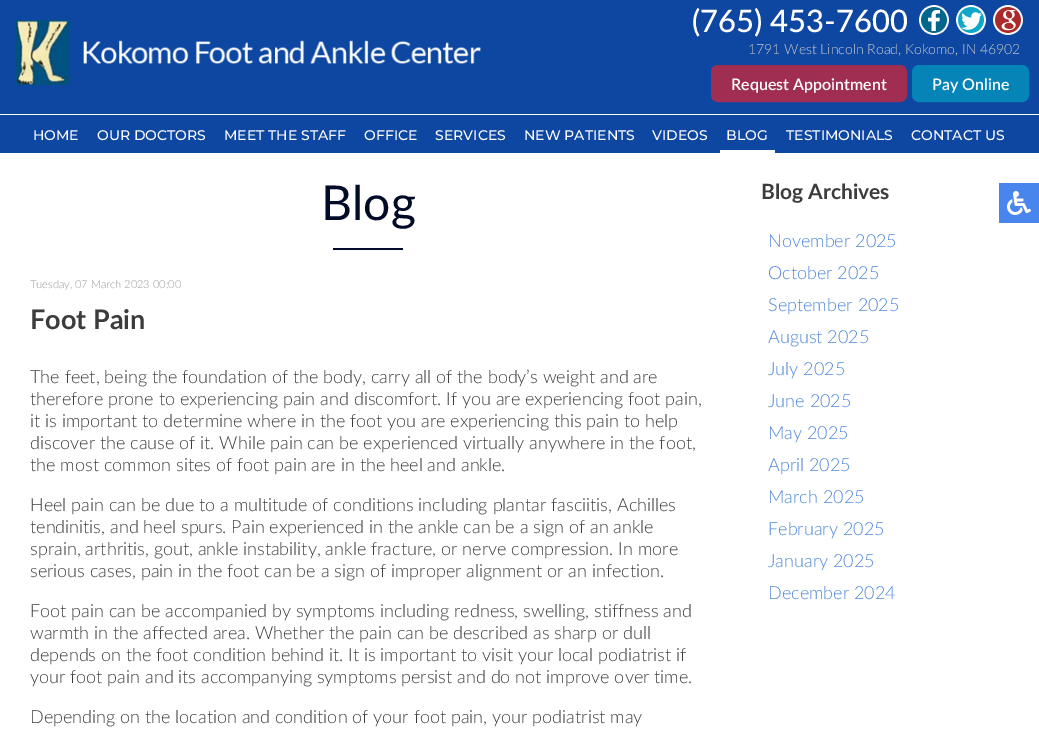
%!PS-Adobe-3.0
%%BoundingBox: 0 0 1039 730
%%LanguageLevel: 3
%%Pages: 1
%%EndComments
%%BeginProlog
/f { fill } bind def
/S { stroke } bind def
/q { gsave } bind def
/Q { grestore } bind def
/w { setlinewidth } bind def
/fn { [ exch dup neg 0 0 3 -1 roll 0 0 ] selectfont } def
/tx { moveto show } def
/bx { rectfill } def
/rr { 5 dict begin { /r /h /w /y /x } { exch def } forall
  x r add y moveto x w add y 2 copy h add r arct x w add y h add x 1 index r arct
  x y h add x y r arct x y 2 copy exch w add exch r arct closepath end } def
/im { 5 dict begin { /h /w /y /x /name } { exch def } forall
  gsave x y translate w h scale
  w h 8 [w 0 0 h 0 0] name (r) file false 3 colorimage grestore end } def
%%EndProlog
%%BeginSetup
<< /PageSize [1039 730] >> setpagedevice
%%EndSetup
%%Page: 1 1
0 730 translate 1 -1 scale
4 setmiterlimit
1 setgray
0 0 1039 730 bx
0.051 0.278 0.631 setrgbcolor
0 0 1039 153 bx
1 setgray
0 114 1039 1 bx
(image0.raw) 15 20 466 66 im
/Lato-Medium 31 fn
(\(765\) 453-7600) 692 32 tx
(image1.raw) 919 5 30 30 im
(image2.raw) 956 5 30 30 im
(image3.raw) 993 5 30 30 im
/Lato-Light 14 fn
0.792 0.788 0.788 setrgbcolor
(1791 West Lincoln Road, Kokomo, IN 46902) 748 54 tx
0.624 0.18 0.322 setrgbcolor
712 66 194 35 6 rr q f Q
2 w
S
/Lato-SemiBold 16 fn
1 setgray
(Request Appointment) 731 90 tx
0.016 0.518 0.718 setrgbcolor
913 66 115 35 6 rr q f Q
S
1 setgray
(Pay Online) 932 90 tx
/Montserrat-Medium 14 fn
(HOME) 33 140 tx
(OUR DOCTORS) 97 140 tx
(MEET THE STAFF) 224 140 tx
(OFFICE) 364 140 tx
(SERVICES) 435 140 tx
(NEW PATIENTS) 524 140 tx
(VIDEOS) 652 140 tx
(BLOG) 726 140 tx
720 150 55 3 bx
(TESTIMONIALS) 786 140 tx
(CONTACT US) 911 140 tx
/Lato-Regular 48 fn
0.004 0.039 0.153 setrgbcolor
(Blog) 321 220 tx
333 248 70 2 bx
/Lato-Light 11 fn
0.6 setgray
(Tuesday, 07 March 2023 00:00) 30 288 tx
/Lato-Bold 27 fn
0.235 setgray
(Foot Pain) 30 329 tx
/Lato-Light 18 fn
(The feet, being the foundation of the body, carry all of the body’s weight and are) 30 383 tx
(therefore prone to experiencing pain and discomfort. If you are experiencing foot pain,) 30 405 tx
(it is important to determine where in the foot you are experiencing this pain to help) 30 427 tx
(discover the cause of it. While pain can be experienced virtually anywhere in the foot,) 30 449 tx
(the most common sites of foot pain are in the heel and ankle.) 30 471 tx
(Heel pain can be due to a multitude of conditions including plantar fasciitis, Achilles) 30 511 tx
(tendinitis, and heel spurs. Pain experienced in the ankle can be a sign of an ankle) 30 533 tx
(sprain, arthritis, gout, ankle instability, ankle fracture, or nerve compression. In more) 30 555 tx
(serious cases, pain in the foot can be a sign of improper alignment or an infection.) 30 577 tx
(Foot pain can be accompanied by symptoms including redness, swelling, stiffness and) 30 617 tx
(warmth in the affected area. Whether the pain can be described as sharp or dull) 30 639 tx
(depends on the foot condition behind it. It is important to visit your local podiatrist if) 30 661 tx
(your foot pain and its accompanying symptoms persist and do not improve over time.) 30 683 tx
(Depending on the location and condition of your foot pain, your podiatrist may) 30 723 tx
/Lato-Bold 21 fn
(Blog Archives) 761 199 tx
/Lato-Light 18 fn
0.306 0.529 0.859 setrgbcolor
(November 2025) 768 247 tx
(October 2025) 768 279 tx
(September 2025) 768 311 tx
(August 2025) 768 343 tx
(July 2025) 768 375 tx
(June 2025) 768 407 tx
(May 2025) 768 439 tx
(April 2025) 768 471 tx
(March 2025) 768 503 tx
(February 2025) 768 535 tx
(January 2025) 768 567 tx
(December 2024) 768 599 tx
0.282 0.522 0.929 setrgbcolor
999 183 40 40 bx
(image4.raw) 1007 191 24 24 im
showpage
%%EOF
